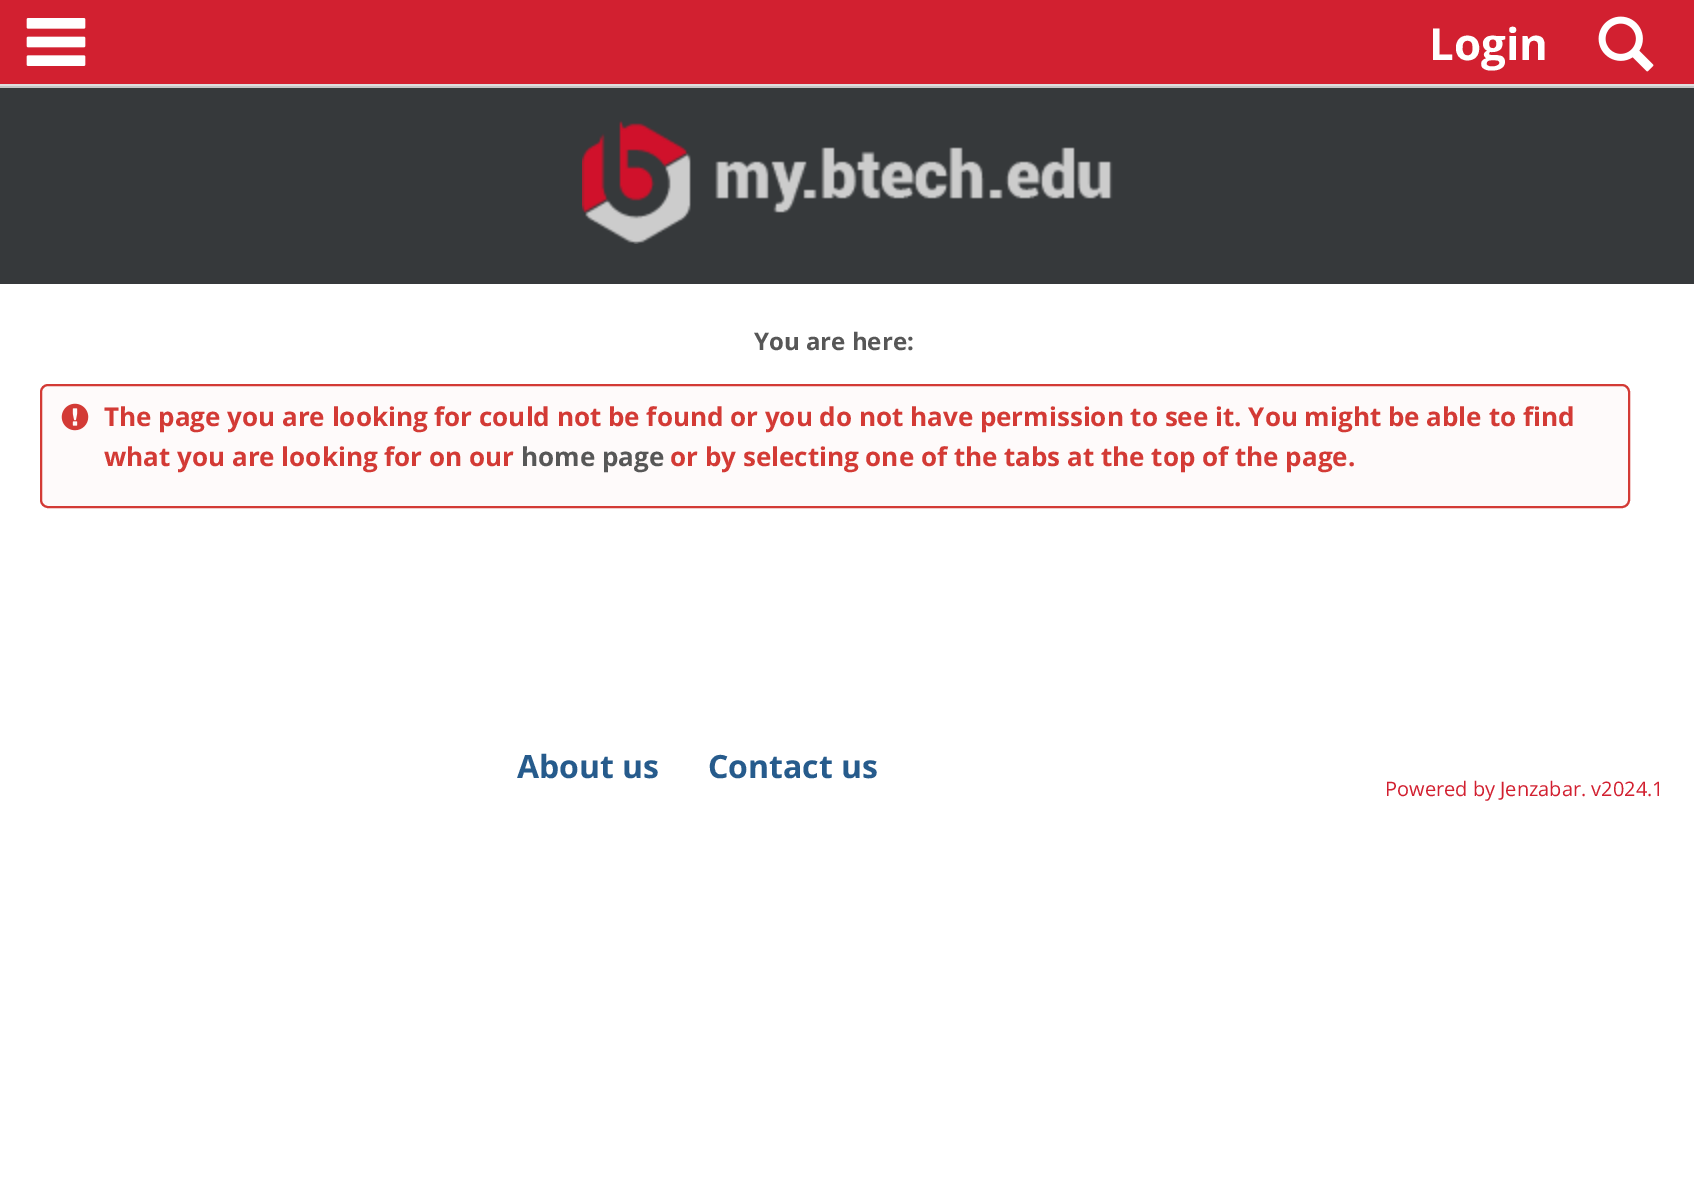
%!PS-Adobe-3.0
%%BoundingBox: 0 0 1694 1201
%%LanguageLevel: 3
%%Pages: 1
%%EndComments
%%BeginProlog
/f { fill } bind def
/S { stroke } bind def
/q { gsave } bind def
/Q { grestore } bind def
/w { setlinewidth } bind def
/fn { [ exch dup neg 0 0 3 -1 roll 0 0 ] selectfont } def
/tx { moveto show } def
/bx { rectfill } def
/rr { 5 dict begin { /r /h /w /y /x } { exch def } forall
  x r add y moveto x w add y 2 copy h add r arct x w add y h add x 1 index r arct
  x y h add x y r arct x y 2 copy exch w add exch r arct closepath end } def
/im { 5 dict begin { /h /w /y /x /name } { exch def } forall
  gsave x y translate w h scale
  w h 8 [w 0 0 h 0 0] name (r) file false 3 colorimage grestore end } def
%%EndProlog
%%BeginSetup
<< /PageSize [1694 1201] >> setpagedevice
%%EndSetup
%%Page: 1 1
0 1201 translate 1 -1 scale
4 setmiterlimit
1 setgray
0 0 1694 1201 bx
0.824 0.125 0.188 setrgbcolor
0 0 1694 84 bx
0.871 setgray
0 84 1694 2 bx
0.212 0.224 0.231 setrgbcolor
0 88 1694 196 bx
(image0.raw) 26 18 60 48 im
/OpenSans-Bold 44 fn
1 setgray
(Login) 1429 60 tx
(image1.raw) 1598 16 56 56 im
0.773 setgray
0 86 1694 2 bx
(image2.raw) 582 120 531 124 im
/OpenSans-Bold 24 fn
0.341 setgray
(You are here:) 754 350 tx
0.996 0.98 0.98 setrgbcolor
41 385 1588 122 7 rr q f Q
0.827 0.227 0.208 setrgbcolor
2 w
S
(image3.raw) 61 403 28 28 im
/OpenSans-Bold 26 fn
(The page you are looking for could not be found or you do not have permission to see it. You might be able to find) 104 426 tx
(what you are looking for on our) 104 466 tx
0.341 setgray
(home page) 521 466 tx
0.827 0.227 0.208 setrgbcolor
(or by selecting one of the tabs at the top of the page.) 670 466 tx
/OpenSans-Bold 32 fn
0.149 0.357 0.549 setrgbcolor
(About us) 517 778 tx
(Contact us) 708 778 tx
/OpenSans-Regular 20 fn
0.824 0.125 0.188 setrgbcolor
(Powered by Jenzabar. v2024.1) 1385 796 tx
showpage
%%EOF
